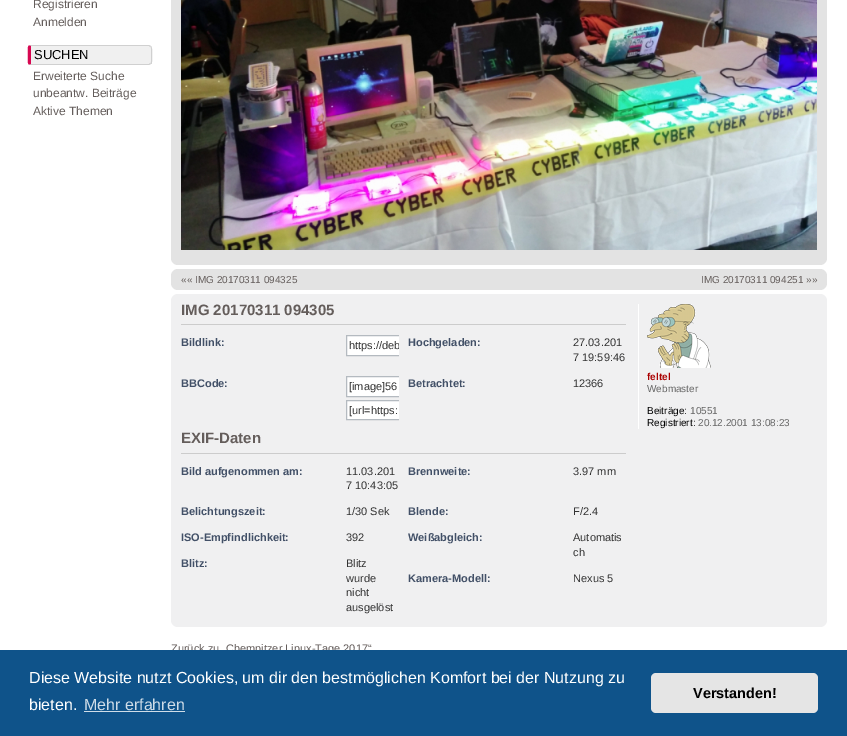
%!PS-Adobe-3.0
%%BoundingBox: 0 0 847 736
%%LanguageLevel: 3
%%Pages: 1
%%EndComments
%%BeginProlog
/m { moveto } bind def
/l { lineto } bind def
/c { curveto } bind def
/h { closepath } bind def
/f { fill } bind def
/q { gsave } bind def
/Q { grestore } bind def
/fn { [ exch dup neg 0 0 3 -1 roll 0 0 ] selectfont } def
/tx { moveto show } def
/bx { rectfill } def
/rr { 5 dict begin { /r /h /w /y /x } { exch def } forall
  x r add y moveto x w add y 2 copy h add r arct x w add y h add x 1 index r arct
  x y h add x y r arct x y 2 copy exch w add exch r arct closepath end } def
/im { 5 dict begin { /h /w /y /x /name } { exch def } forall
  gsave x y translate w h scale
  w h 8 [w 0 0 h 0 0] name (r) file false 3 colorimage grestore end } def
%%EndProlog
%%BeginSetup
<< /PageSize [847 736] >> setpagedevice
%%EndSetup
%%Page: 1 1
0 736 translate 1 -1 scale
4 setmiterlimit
1 setgray
0 0 847 736 bx
/LiberationSans-Regular 12 fn
0.392 0.365 0.357 setrgbcolor
(Registrieren) 33 8 tx
(Anmelden) 33 26 tx
0.941 setgray
31 46 m 149 46 l 150 46 151 47 151 48 c 151 62 l 151 63 150 64 149 64 c 31 64 l h f
0.816 setgray
31 45 m 29 45 l 31 46 l 149 46 l 150 47 l 151 46 l 149 45 l h f
152 62 m 152 59.5 153 47.5 151 46 c 150.5 46.5 l 151.5 48 151 53 151 55 c 151 57 151.5 62 150.5 63.5 c 151 64 l 152 64 152 63 152 62 c h f
31 65 m 149 65 l 151 64 l 150 63 l 149 64 l 31 64 l 29 65 l h f
0.843 0.027 0.318 setrgbcolor
31 46 m 29 45.5 l 27 46.5 28 53 28 55 c 28 57 27 63.5 29 64.5 c 31 64 l h f
/LiberationSans-Regular 13 fn
0 setgray
(SUCHEN) 34 59 tx
/LiberationSans-Regular 12 fn
0.392 0.365 0.357 setrgbcolor
(Erweiterte Suche) 33 80 tx
(unbeantw. Beiträge) 33 97 tx
(Aktive Themen) 33 115 tx
0.89 setgray
171 -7 656 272 7 rr f
(image0.raw) 181 0 636 250 im
171 269 656 21 7 rr f
/LiberationSans-Regular 10 fn
0.392 0.365 0.357 setrgbcolor
(«« IMG 20170311 094325) 181 283 tx
(IMG 20170311 094251 »») 701 283 tx
0.941 0.941 0.945 setrgbcolor
171 294 656 333 7 rr f
/LiberationSans-Bold 15 fn
0.392 0.365 0.357 setrgbcolor
(IMG 20170311 094305) 181 315 tx
0.8 setgray
181 324 445 1 bx
/LiberationSans-Bold 11 fn
0.259 0.314 0.404 setrgbcolor
(Bildlink:) 181 346 tx
1 setgray
347 336 52 19 bx
q
181 331 218 32 rectclip
0.706 0.729 0.753 setrgbcolor
346.5 335.5 56 20 rectstroke
Q
q
349 338 50 15 rectclip
/LiberationSans-Regular 11 fn
0.2 setgray
(https://deb) 349 349 tx
Q
0.259 0.314 0.404 setrgbcolor
(Hochgeladen:) 408 346 tx
/LiberationSans-Regular 11 fn
0.2 setgray
(27.03.201) 573 346 tx
(7 19:59:46) 573 361 tx
/LiberationSans-Bold 11 fn
0.259 0.314 0.404 setrgbcolor
(BBCode:) 181 387 tx
1 setgray
347 377 52 19 bx
q
181 372 218 55 rectclip
0.706 0.729 0.753 setrgbcolor
346.5 376.5 56 20 rectstroke
Q
/LiberationSans-Regular 11 fn
0.2 setgray
([image]56) 349 390 tx
1 setgray
347 401 52 18 bx
q
181 372 218 55 rectclip
0.706 0.729 0.753 setrgbcolor
346.5 400.5 56 19 rectstroke
Q
0.2 setgray
([url=https:) 349 414 tx
/LiberationSans-Bold 11 fn
0.259 0.314 0.404 setrgbcolor
(Betrachtet:) 408 387 tx
/LiberationSans-Regular 11 fn
0.2 setgray
(12366) 573 387 tx
/LiberationSans-Bold 15 fn
0.392 0.365 0.357 setrgbcolor
(EXIF-Daten) 181 443 tx
0.8 setgray
181 453 445 1 bx
/LiberationSans-Bold 11 fn
0.259 0.314 0.404 setrgbcolor
(Bild aufgenommen am:) 181 475 tx
/LiberationSans-Regular 11 fn
0.2 setgray
(11.03.201) 346 475 tx
(7 10:43:05) 346 489 tx
/LiberationSans-Bold 11 fn
0.259 0.314 0.404 setrgbcolor
(Brennweite:) 408 475 tx
/LiberationSans-Regular 11 fn
0.2 setgray
(3.97 mm) 573 475 tx
/LiberationSans-Bold 11 fn
0.259 0.314 0.404 setrgbcolor
(Belichtungszeit:) 181 515 tx
/LiberationSans-Regular 11 fn
0.2 setgray
(1/30 Sek) 346 515 tx
/LiberationSans-Bold 11 fn
0.259 0.314 0.404 setrgbcolor
(Blende:) 408 515 tx
/LiberationSans-Regular 11 fn
0.2 setgray
(F/2.4) 573 515 tx
/LiberationSans-Bold 11 fn
0.259 0.314 0.404 setrgbcolor
(ISO-Empfindlichkeit:) 181 541 tx
/LiberationSans-Regular 11 fn
0.2 setgray
(392) 346 541 tx
/LiberationSans-Bold 11 fn
0.259 0.314 0.404 setrgbcolor
(Weißabgleich:) 408 541 tx
/LiberationSans-Regular 11 fn
0.2 setgray
(Automatis) 573 541 tx
(ch) 573 556 tx
/LiberationSans-Bold 11 fn
0.259 0.314 0.404 setrgbcolor
(Blitz:) 181 567 tx
/LiberationSans-Regular 11 fn
0.2 setgray
(Blitz) 346 567 tx
(wurde) 346 582 tx
(nicht) 346 596 tx
(ausgelöst) 346 611 tx
/LiberationSans-Bold 11 fn
0.259 0.314 0.404 setrgbcolor
(Kamera-Modell:) 408 582 tx
/LiberationSans-Regular 11 fn
0.2 setgray
(Nexus 5) 573 582 tx
1 setgray
638 304 1 125 bx
(image1.raw) 647 304 64 64 im
/LiberationSans-Bold 10 fn
0.667 0 0 setrgbcolor
(feltel) 647 380 tx
/LiberationSans-Regular 10 fn
0.4 setgray
(Webmaster) 647 392 tx
0 setgray
(Beiträge:) 647 414 tx
0.4 setgray
(10551) 690 414 tx
0 setgray
(Registriert:) 647 426 tx
0.4 setgray
(20.12.2001 13:08:23) 698 426 tx
/LiberationSans-Regular 11 fn
0.392 0.365 0.357 setrgbcolor
(Zurück zu „Chemnitzer Linux-Tage 2017“) 171 652 tx
0.059 0.325 0.541 setrgbcolor
0 650 847 86 bx
/LiberationSans-Regular 16 fn
1 setgray
(Diese Website nutzt Cookies, um dir den bestmöglichen Komfort bei der Nutzung zu) 29 683 tx
(bieten.) 29 710 tx
0.812 0.867 0.91 setrgbcolor
(Mehr erfahren) 84 710 tx
84 711 101 1 bx
0.898 setgray
651 673 167 40 5 rr f
/LiberationSans-Bold 14.5 fn
0 setgray
(Verstanden!) 693 698 tx
showpage
%%EOF
